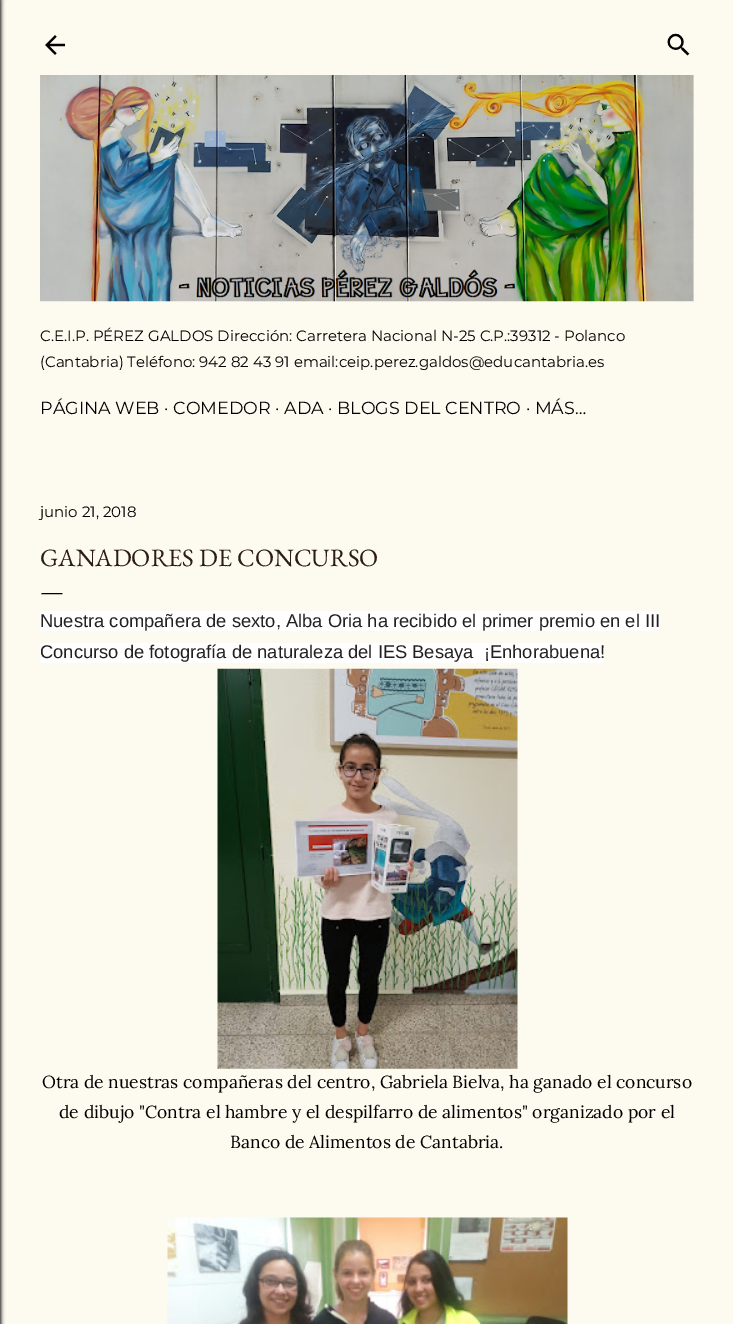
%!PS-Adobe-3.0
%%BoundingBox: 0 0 733 1324
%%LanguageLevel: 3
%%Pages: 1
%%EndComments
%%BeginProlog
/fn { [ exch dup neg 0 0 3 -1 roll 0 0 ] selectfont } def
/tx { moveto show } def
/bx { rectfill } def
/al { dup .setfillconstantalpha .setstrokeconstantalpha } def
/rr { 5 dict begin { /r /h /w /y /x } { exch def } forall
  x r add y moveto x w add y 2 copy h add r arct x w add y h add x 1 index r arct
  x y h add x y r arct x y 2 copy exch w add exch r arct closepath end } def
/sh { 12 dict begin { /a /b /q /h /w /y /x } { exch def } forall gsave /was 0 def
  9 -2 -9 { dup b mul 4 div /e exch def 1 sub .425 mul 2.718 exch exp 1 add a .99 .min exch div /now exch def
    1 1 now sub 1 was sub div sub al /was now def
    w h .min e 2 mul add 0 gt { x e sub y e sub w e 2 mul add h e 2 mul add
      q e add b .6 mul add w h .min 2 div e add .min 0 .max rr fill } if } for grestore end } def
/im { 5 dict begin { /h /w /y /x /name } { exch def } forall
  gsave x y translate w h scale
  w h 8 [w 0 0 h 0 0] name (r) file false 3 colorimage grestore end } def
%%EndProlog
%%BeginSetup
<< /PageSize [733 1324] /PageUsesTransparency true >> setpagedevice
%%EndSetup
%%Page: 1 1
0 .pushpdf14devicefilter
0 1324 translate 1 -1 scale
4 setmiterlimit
0.992 0.98 0.941 setrgbcolor
0 0 733 1324 bx
0 setgray
-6 0 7 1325 0 2 1 sh
(image0.raw) 45 35 20 20 im
(image1.raw) 667 33 23 23 im
(image2.raw) 40 75 654 227 im
/Montserrat-Regular 15 fn
(C.E.I.P. PÉREZ GALDOS Dirección: Carretera Nacional N-25 C.P.:39312 - Polanco) 40 341 tx
(\(Cantabria\) Teléfono: 942 82 43 91 email:ceip.perez.galdos@educantabria.es) 40 367 tx
/Montserrat-Regular 17.5 fn
(PÁGINA WEB · COMEDOR · ADA · BLOGS DEL CENTRO · MÁS…) 40 414 tx
/Montserrat-Regular 15 fn
(junio 21, 2018) 40 517 tx
/EBGaramond-Regular 25 fn
0.173 0.114 0.078 setrgbcolor
(GANADORES DE CONCURSO) 40 566 tx
0 setgray
(—) 40 599 tx
1 setgray
40 611 619 20 bx
/LiberationSans-Regular 18.35 fn
0.129 setgray
(Nuestra compañera de sexto, Alba Oria ha recibido el primer premio en el III) 40 627 tx
1 setgray
40 643 564 20 bx
0.129 setgray
(Concurso de fotografía de naturaleza del IES Besaya  ¡Enhorabuena!) 40 658 tx
(image3.raw) 217 668 301 401 im
/Lora-Regular 17.5 fn
0 setgray
(Otra de nuestras compañeras del centro, Gabriela Bielva, ha ganado el concurso) 42 1088 tx
(de dibujo "Contra el hambre y el despilfarro de alimentos" organizado por el) 59 1118 tx
(Banco de Alimentos de Cantabria.) 230 1148 tx
(image4.raw) 167 1217 401 107 im
.poppdf14devicefilter showpage
%%EOF
